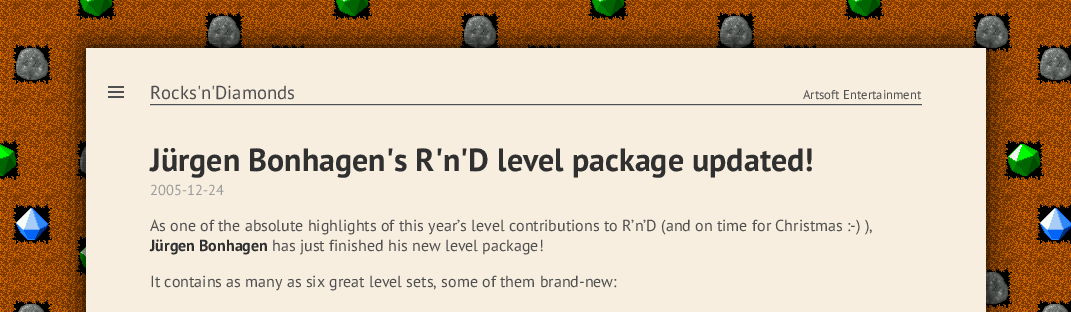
%!PS-Adobe-3.0
%%BoundingBox: 0 0 1071 312
%%LanguageLevel: 3
%%Pages: 1
%%EndComments
%%BeginProlog
/fn { [ exch dup neg 0 0 3 -1 roll 0 0 ] selectfont } def
/tx { moveto show } def
/bx { rectfill } def
/al { dup .setfillconstantalpha .setstrokeconstantalpha } def
/rr { 5 dict begin { /r /h /w /y /x } { exch def } forall
  x r add y moveto x w add y 2 copy h add r arct x w add y h add x 1 index r arct
  x y h add x y r arct x y 2 copy exch w add exch r arct closepath end } def
/sh { 12 dict begin { /a /b /q /h /w /y /x } { exch def } forall gsave /was 0 def
  9 -2 -9 { dup b mul 4 div /e exch def 1 sub .425 mul 2.718 exch exp 1 add a .99 .min exch div /now exch def
    1 1 now sub 1 was sub div sub al /was now def
    w h .min e 2 mul add 0 gt { x e sub y e sub w e 2 mul add h e 2 mul add
      q e add b .6 mul add w h .min 2 div e add .min 0 .max rr fill } if } for grestore end } def
/im { 5 dict begin { /h /w /y /x /name } { exch def } forall
  gsave x y translate w h scale
  w h 8 [w 0 0 h 0 0] name (r) file false 3 colorimage grestore end } def
%%EndProlog
%%BeginSetup
<< /PageSize [1071 312] /PageUsesTransparency true >> setpagedevice
%%EndSetup
%%Page: 1 1
0 .pushpdf14devicefilter
0 312 translate 1 -1 scale
4 setmiterlimit
1 setgray
0 0 1071 312 bx
(image0.raw) 0 0 1071 312 im
0 setgray
86 48 900 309 0 15 1 sh
0.973 0.933 0.878 setrgbcolor
86 48 900 264 bx
0.314 setgray
108 86 16 2 bx
108 91 16 2 bx
108 96 16 2 bx
/PTSans-Regular 18.75 fn
(Rocks'n'Diamonds) 150 99 tx
/PTSans-Regular 12.75 fn
(Artsoft Entertainment) 803 99 tx
150 104 772 1 bx
0.8 setgray
150 105 772 1 bx
/PTSans-Bold 32 fn
0.188 setgray
(Jürgen Bonhagen's R'n'D level package updated!) 150 171 tx
/PTSans-Regular 14.5 fn
0.604 setgray
(2005-12-24) 150 195 tx
/PTSans-Regular 16 fn
0.314 setgray
(As one of the absolute highlights of this year’s level contributions to R’n’D \(and on time for Christmas :-\) \),) 150 231 tx
/PTSans-Bold 16 fn
0.188 setgray
(Jürgen Bonhagen) 150 251 tx
/PTSans-Regular 16 fn
0.314 setgray
(has just finished his new level package!) 272 251 tx
(It contains as many as six great level sets, some of them brand-new:) 150 287 tx
.poppdf14devicefilter showpage
%%EOF
